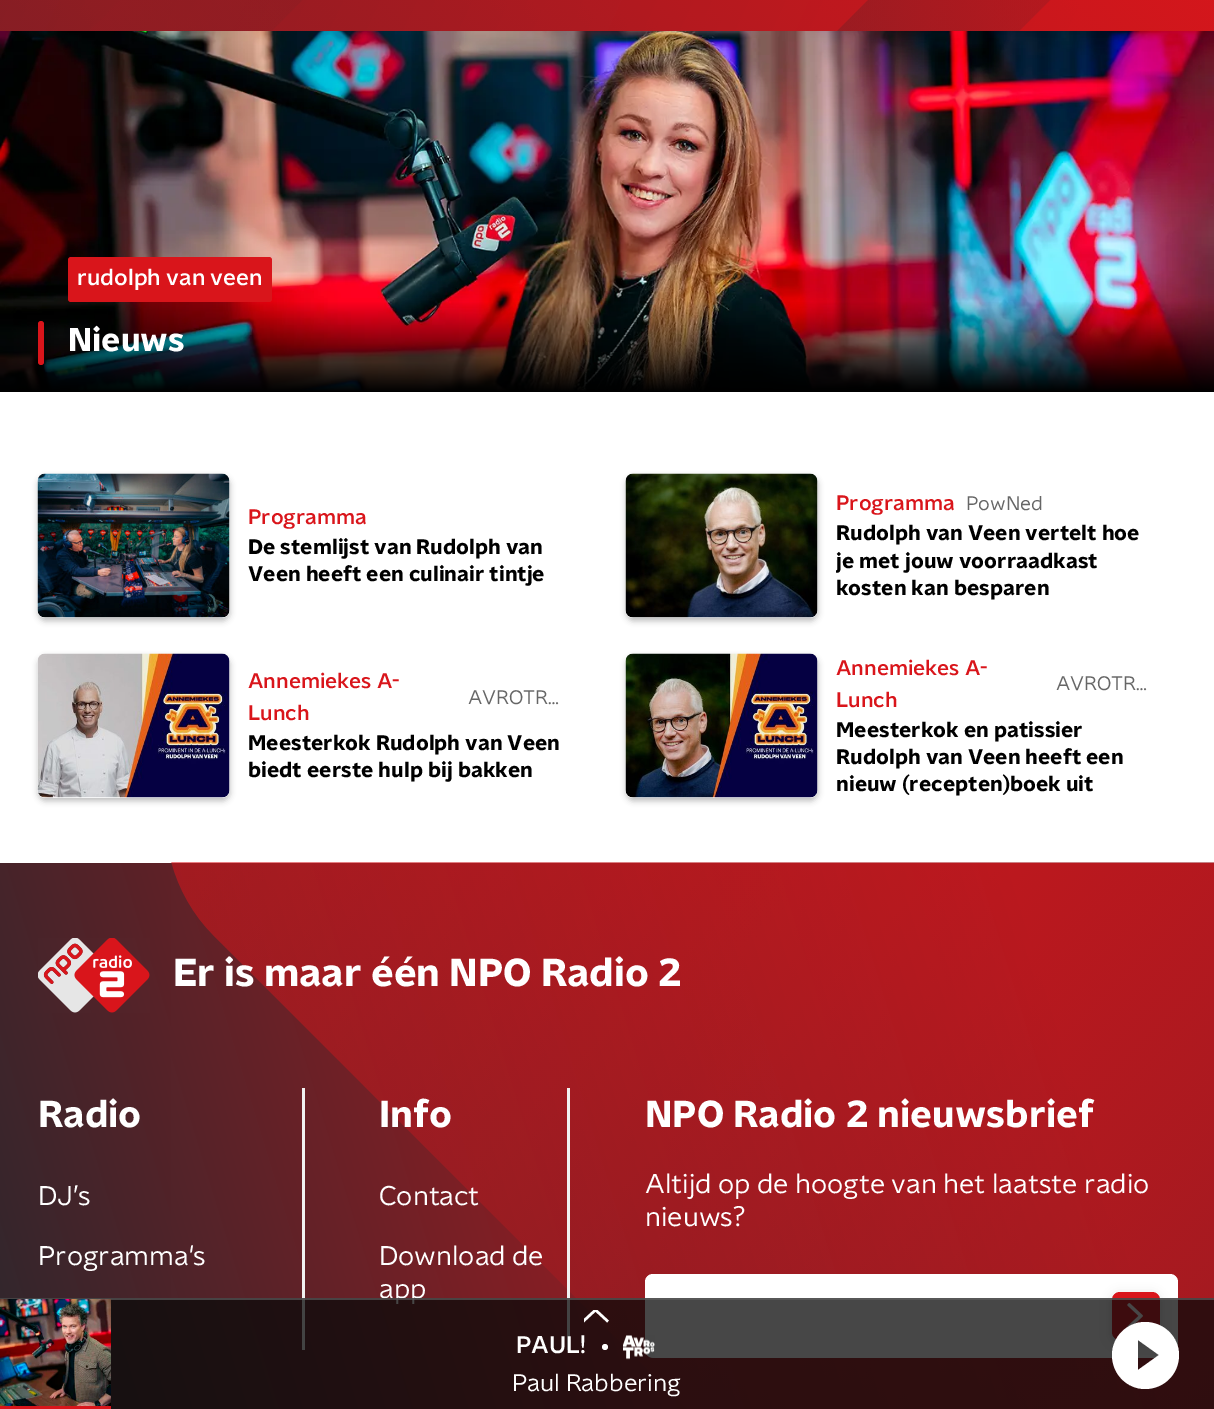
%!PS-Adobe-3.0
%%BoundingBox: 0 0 1214 1409
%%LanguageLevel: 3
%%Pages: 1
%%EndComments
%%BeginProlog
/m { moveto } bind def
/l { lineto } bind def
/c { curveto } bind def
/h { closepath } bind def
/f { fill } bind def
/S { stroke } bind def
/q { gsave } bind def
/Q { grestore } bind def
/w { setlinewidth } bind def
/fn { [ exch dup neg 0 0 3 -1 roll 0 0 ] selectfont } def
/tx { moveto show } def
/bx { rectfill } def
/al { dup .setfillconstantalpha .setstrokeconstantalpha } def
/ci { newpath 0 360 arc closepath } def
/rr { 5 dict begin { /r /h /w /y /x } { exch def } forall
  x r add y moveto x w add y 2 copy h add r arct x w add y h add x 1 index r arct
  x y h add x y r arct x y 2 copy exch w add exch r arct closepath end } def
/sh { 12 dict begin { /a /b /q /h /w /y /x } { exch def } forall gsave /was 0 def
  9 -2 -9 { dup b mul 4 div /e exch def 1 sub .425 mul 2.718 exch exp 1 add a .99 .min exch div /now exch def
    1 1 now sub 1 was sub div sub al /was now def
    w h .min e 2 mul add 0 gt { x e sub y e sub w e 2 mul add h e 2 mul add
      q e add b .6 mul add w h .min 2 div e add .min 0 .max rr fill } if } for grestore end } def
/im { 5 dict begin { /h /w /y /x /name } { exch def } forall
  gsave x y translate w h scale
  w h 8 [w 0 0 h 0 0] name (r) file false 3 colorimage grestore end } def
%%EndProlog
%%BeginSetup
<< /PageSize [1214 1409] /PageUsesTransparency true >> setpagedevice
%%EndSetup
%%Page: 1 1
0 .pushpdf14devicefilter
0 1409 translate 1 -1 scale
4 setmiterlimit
1 setgray
0 0 1214 1409 bx
q 0 0 m 1214 0 l 1214 31 l 0 31 l h clip newpath
<< /ShadingType 2 /ColorSpace /DeviceRGB /Coords [1127 221 88 -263] /Extend [true true] /Function << /FunctionType 3 /Domain [0 1] /Functions [<< /FunctionType 2 /Domain [0 1] /C0 [0.851 0.082 0.106] /C1 [0.851 0.082 0.106] /N 1 >> << /FunctionType 2 /Domain [0 1] /C0 [0.851 0.082 0.106] /C1 [0.612 0.106 0.129] /N 1 >>] /Bounds [0.11] /Encode [0 1 0 1] >> >> shfill Q
(image0.raw) 0 0 1214 31 im
0 setgray
0 391 1214 1 bx
(image1.raw) 0 31 1214 360 im
0.851 0.082 0.106 setrgbcolor
68 257 204 45 3 rr f
/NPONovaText-Medium 22.5 fn
1 setgray
(rudolph van veen) 77 285 tx
0.851 0.082 0.106 setrgbcolor
38 321 6 44 3 rr f
/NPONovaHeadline-Bold 33 fn
1 setgray
(Nieuws) 68 351 tx
0 setgray
38 477 192 144 8 3 0.25 sh
(image2.raw) 37 473 193 145 im
/NPONovaText-Medium 21 fn
0.851 0.082 0.106 setrgbcolor
(Programma) 248 524 tx
/NPONovaHeadline-Bold 21 fn
0 setgray
(De stemlijst van Rudolph van) 248 554 tx
(Veen heeft een culinair tintje) 248 581 tx
626 477 192 144 8 3 0.25 sh
(image3.raw) 625 473 193 145 im
/NPONovaText-Medium 21 fn
0.851 0.082 0.106 setrgbcolor
(Programma) 836 510 tx
/NPONovaText-Regular 19.5 fn
0.4 setgray
(PowNed) 966 510 tx
/NPONovaHeadline-Bold 21 fn
0 setgray
(Rudolph van Veen vertelt hoe) 836 540 tx
q
836 521 324 82 rectclip
(je met jouw voorraadkast) 836 568 tx
Q
(kosten kan besparen) 836 595 tx
38 657 192 144 8 3 0.25 sh
(image4.raw) 37 653 193 145 im
/NPONovaText-Medium 21 fn
0.851 0.082 0.106 setrgbcolor
(Annemiekes A-) 248 688 tx
(Lunch) 248 720 tx
/NPONovaText-Regular 19.5 fn
0.4 setgray
(AVROTR…) 468 704 tx
/NPONovaHeadline-Bold 21 fn
0 setgray
(Meesterkok Rudolph van Veen) 248 750 tx
(biedt eerste hulp bij bakken) 248 777 tx
626 657 192 144 8 3 0.25 sh
(image5.raw) 625 653 193 145 im
/NPONovaText-Medium 21 fn
0.851 0.082 0.106 setrgbcolor
(Annemiekes A-) 836 675 tx
(Lunch) 836 707 tx
/NPONovaText-Regular 19.5 fn
0.4 setgray
(AVROTR…) 1056 690 tx
/NPONovaHeadline-Bold 21 fn
0 setgray
(Meesterkok en patissier) 836 737 tx
(Rudolph van Veen heeft een) 836 764 tx
(nieuw \(recepten\)boek uit) 836 791 tx
q 0 863 m 1214 863 l 1214 1409 l 0 1409 l h clip newpath
<< /ShadingType 2 /ColorSpace /DeviceRGB /Coords [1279 1072 -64 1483] /Extend [true true] /Function << /FunctionType 3 /Domain [0 1] /Functions [<< /FunctionType 2 /Domain [0 1] /C0 [0.851 0.082 0.106] /C1 [0.851 0.082 0.106] /N 1 >> << /FunctionType 2 /Domain [0 1] /C0 [0.851 0.082 0.106] /C1 [0.133 0.157 0.18] /N 1 >>] /Bounds [0.14] /Encode [0 1 0 1] >> >> shfill Q
(image6.raw) 171 862 1043 547 im
(image7.raw) 38 938 112 75 im
/NPONovaHeadline-Bold 39 fn
1 setgray
(Er is maar één NPO Radio 2) 173 986 tx
0.945 setgray
302 1088 3 262 bx
/NPONovaHeadline-Bold 37.5 fn
1 setgray
(Radio) 38 1127 tx
/NPONovaText-Regular 27 fn
(DJ’s) 38 1205 tx
(Programma's) 38 1265 tx
0.945 setgray
567 1088 3 262 bx
/NPONovaHeadline-Bold 37.5 fn
1 setgray
(Info) 379 1127 tx
/NPONovaText-Regular 27 fn
(Contact) 379 1205 tx
(Download de) 379 1265 tx
(app) 379 1298 tx
/NPONovaHeadline-Bold 37.5 fn
(NPO Radio 2 nieuwsbrief) 645 1127 tx
/NPONovaText-Regular 27 fn
(Altijd op de hoogte van het laatste radio) 645 1193 tx
(nieuws?) 645 1226 tx
645 1274 533 84 8 rr f
0 setgray
1110 1293 51 51 9 5 0.1 sh
0.851 0.082 0.106 setrgbcolor
1112 1292 48 48 8 rr f
(image8.raw) 1127 1303 16 25 im
0.75 al
0.035 setgray
0 1298 1214 111 bx
0.65 al
0.373 setgray
0 1298 1214 2 bx
1 al
(image9.raw) 0 1299 111 107 im
0.851 0.082 0.106 setrgbcolor
0 1406 111 3 bx
q
584 1310 27 13 rectclip
1 setgray
2.5 w
608 1321.5 m 595.5 1310 l 583 1321.5 l S
Q
/NPONovaText-Medium 24 fn
1 setgray
(PAUL!) 516 1353 tx
605 1347 3 ci f
(image10.raw) 623 1335 32 25 im
/NPONovaText-Regular 24 fn
(Paul Rabbering) 512 1391 tx
1145 1322 m 1127 1322 1112 1337 1112 1355 c 1112 1374 1127 1389 1145 1389 c 1164 1389 1179 1374 1179 1355 c 1179 1337 1164 1322 1145 1322 c h 1138 1370 m 1138 1340 l 1159 1355 l h f
.poppdf14devicefilter showpage
%%EOF
